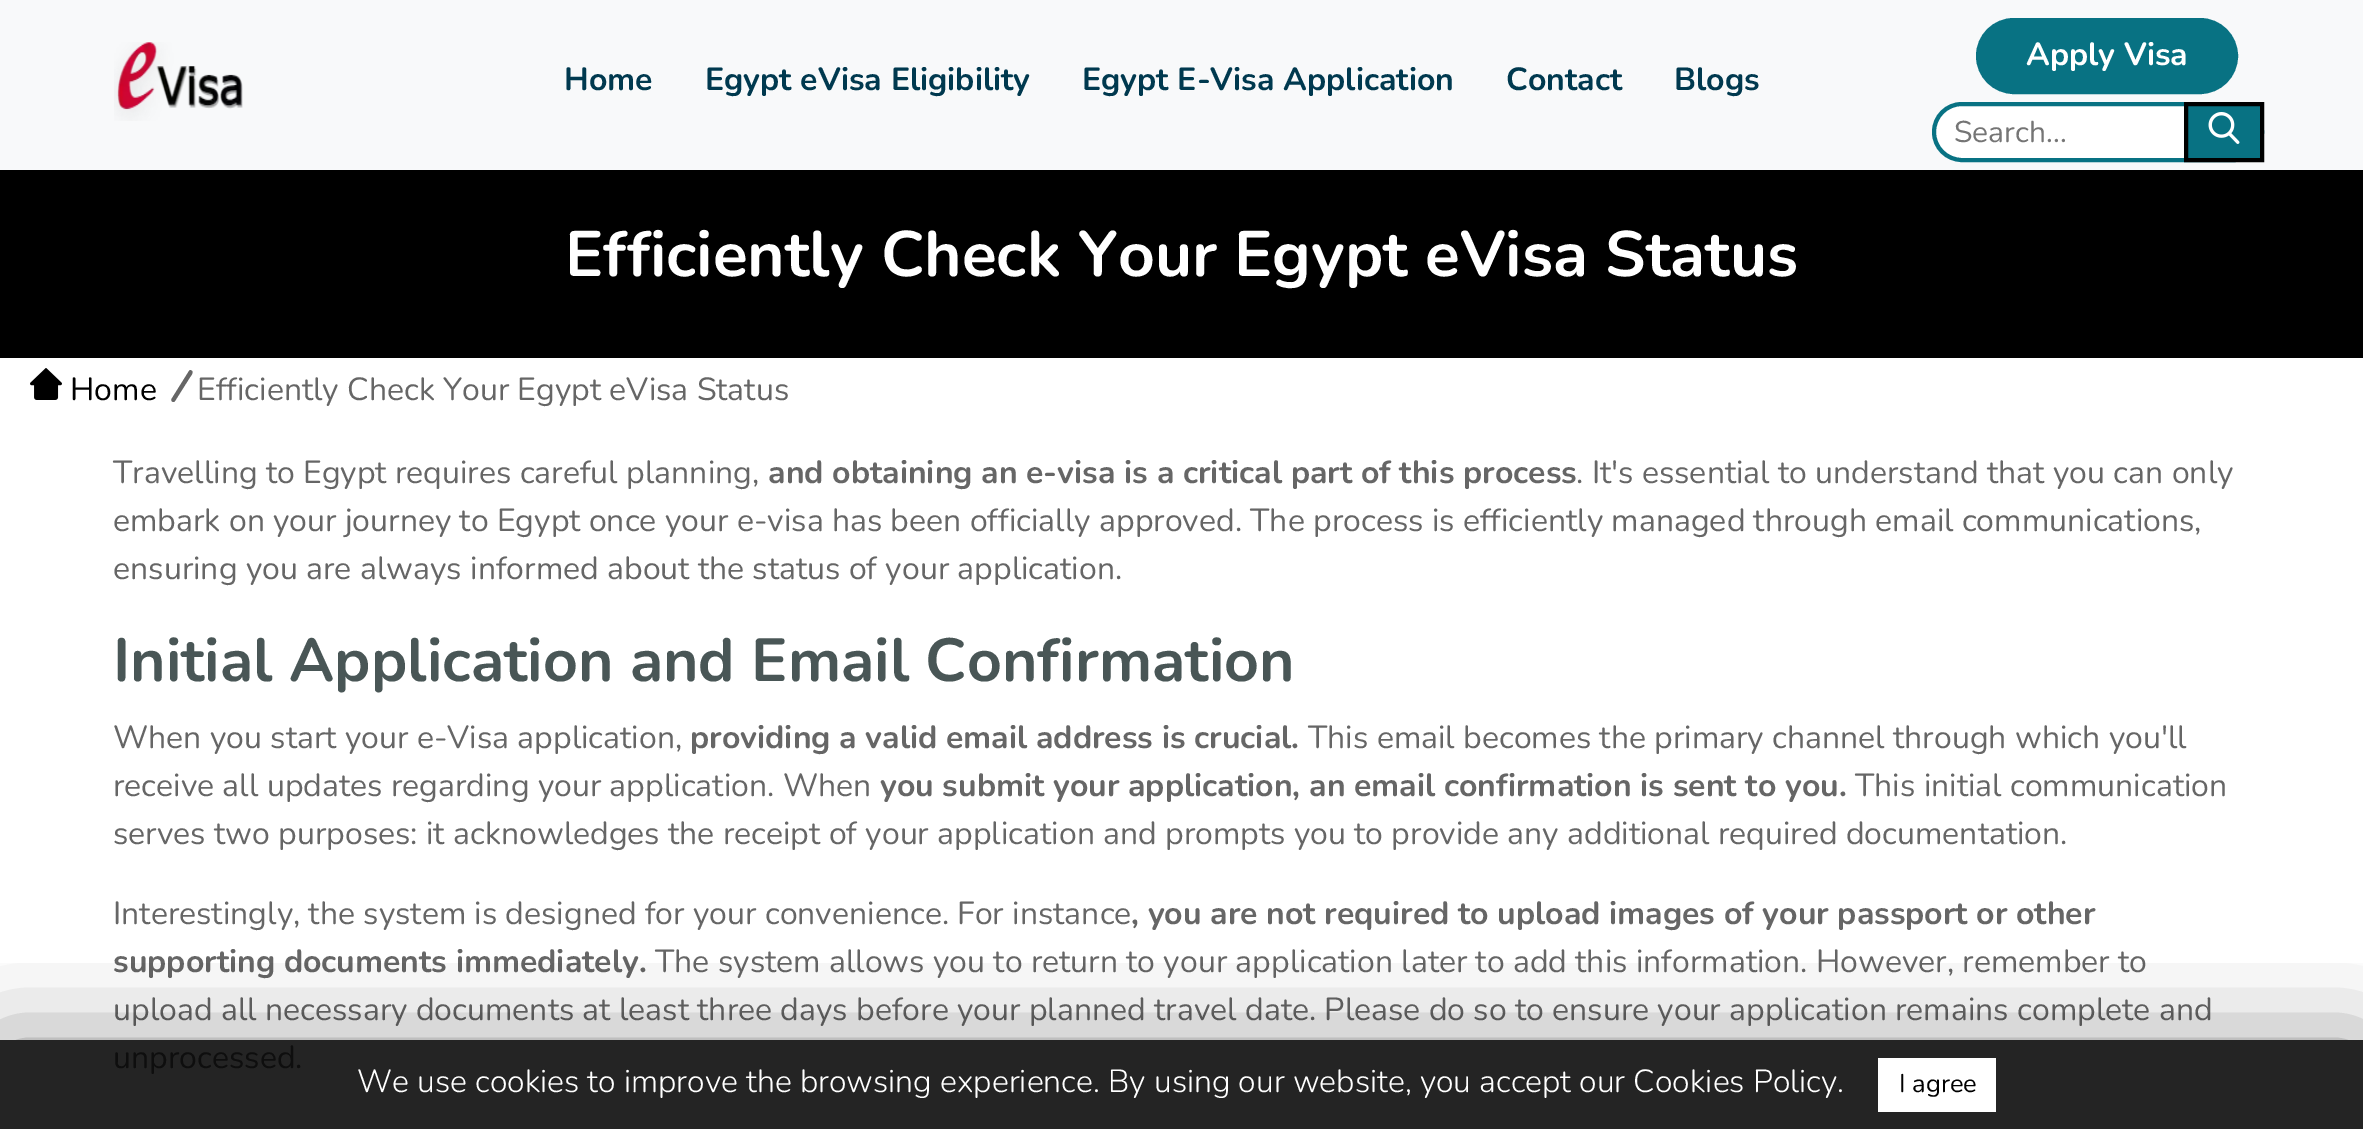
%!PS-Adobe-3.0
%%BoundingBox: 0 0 2363 1129
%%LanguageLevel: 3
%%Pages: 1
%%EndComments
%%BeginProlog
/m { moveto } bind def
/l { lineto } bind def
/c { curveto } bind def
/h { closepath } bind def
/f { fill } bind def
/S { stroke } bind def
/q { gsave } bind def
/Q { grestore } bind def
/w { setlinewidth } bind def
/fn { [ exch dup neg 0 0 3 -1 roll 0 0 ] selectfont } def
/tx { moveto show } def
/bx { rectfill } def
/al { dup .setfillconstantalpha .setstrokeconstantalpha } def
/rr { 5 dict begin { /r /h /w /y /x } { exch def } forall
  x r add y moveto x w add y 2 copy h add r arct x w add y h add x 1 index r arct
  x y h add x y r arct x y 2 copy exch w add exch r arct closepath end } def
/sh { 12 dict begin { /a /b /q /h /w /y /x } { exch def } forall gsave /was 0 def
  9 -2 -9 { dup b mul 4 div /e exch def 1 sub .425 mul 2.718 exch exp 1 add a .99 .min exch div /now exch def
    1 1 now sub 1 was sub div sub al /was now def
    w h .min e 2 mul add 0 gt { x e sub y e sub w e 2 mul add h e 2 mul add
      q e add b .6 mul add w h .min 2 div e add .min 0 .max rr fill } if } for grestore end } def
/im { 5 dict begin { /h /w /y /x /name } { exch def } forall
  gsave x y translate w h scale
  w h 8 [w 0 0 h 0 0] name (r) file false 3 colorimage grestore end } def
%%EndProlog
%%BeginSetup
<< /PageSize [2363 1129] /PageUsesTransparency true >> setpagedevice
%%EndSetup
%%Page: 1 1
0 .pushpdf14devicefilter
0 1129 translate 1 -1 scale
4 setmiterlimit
1 setgray
0 0 2363 1129 bx
0.141 setgray
0 1040 2363 89 bx
0.973 0.976 0.98 setrgbcolor
0 0 2363 170 bx
(image0.raw) 114 42 129 79 im
0.031 0.447 0.514 setrgbcolor
1977 19 260 74 37 rr q f Q
2 w
S
/Nunito-Bold 32 fn
1 setgray
(Apply Visa) 2026 65 tx
0 0.224 0.31 setrgbcolor
(Home) 564 90 tx
(Egypt eVisa Eligibility) 705 90 tx
(Egypt E-Visa Application) 1082 90 tx
(Contact) 1506 90 tx
(Blogs) 1674 90 tx
1 setgray
1934 104 328 56 28 rr q f Q
0.031 0.447 0.514 setrgbcolor
4 w
S
/Nunito-Regular 30 fn
0.459 setgray
(Search...) 1954 142 tx
0.031 0.447 0.514 setrgbcolor
2186 104 m 2262 104 l 2262 160 l 2186 160 l h q f Q
0 setgray
S
(image1.raw) 2208 112 32 32 im
0 170 2363 188 bx
/Nunito-Bold 64 fn
1 setgray
(Efficiently Check Your Egypt eVisa Status) 565 276 tx
(image2.raw) 30 368 32 32 im
/Nunito-Regular 32 fn
0 setgray
(Home) 70 400 tx
0.4 setgray
189 371 m 171.5 399 l 170.5 401.5 174 403 175 401 c 189.5 378 l 190 377 194.5 372 191.5 370.5 c 190.5 370 189.5 370 189 371 c h f
(Efficiently Check Your Egypt eVisa Status) 197 400 tx
(Travelling to Egypt requires careful planning,) 113 483 tx
/Nunito-Bold 32 fn
(and obtaining an e-visa is a critical part of this process) 768 483 tx
/Nunito-Regular 32 fn
(. It's essential to understand that you can only) 1576 483 tx
(embark on your journey to Egypt once your e-visa has been officially approved. The process is efficiently managed through email communications,) 113 531 tx
(ensuring you are always informed about the status of your application.) 113 579 tx
/Nunito-Bold 60.75 fn
0.286 0.337 0.337 setrgbcolor
(Initial Application and Email Confirmation) 113 681 tx
/Nunito-Regular 32 fn
0.4 setgray
(When you start your e-Visa application,) 113 748 tx
/Nunito-Bold 32 fn
(providing a valid email address is crucial.) 690 748 tx
/Nunito-Regular 32 fn
(This email becomes the primary channel through which you'll) 1308 748 tx
(receive all updates regarding your application. When) 113 796 tx
/Nunito-Bold 32 fn
(you submit your application, an email confirmation is sent to you.) 880 796 tx
/Nunito-Regular 32 fn
(This initial communication) 1855 796 tx
(serves two purposes: it acknowledges the receipt of your application and prompts you to provide any additional required documentation.) 113 844 tx
(Interestingly, the system is designed for your convenience. For instance) 113 924 tx
/Nunito-Bold 32 fn
(, you are not required to upload images of your passport or other) 1131 924 tx
(supporting documents immediately.) 113 972 tx
/Nunito-Regular 32 fn
(The system allows you to return to your application later to add this information. However, remember to) 655 972 tx
(upload all necessary documents at least three days before your planned travel date. Please do so to ensure your application remains complete and) 113 1020 tx
0.055 setgray
(unprocessed.) 113 1068 tx
q
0 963 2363 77 rectclip
0 setgray
0 1050 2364 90 0 50 0.5 sh
Q
/Nunito-Light 32 fn
1 setgray
(We use cookies to improve the browsing experience. By using our website, you accept our Cookies Policy.) 357 1092 tx
1878 1058 118 54 bx
/Nunito-Regular 25.5 fn
0 setgray
(I agree) 1899 1092 tx
.poppdf14devicefilter showpage
%%EOF
